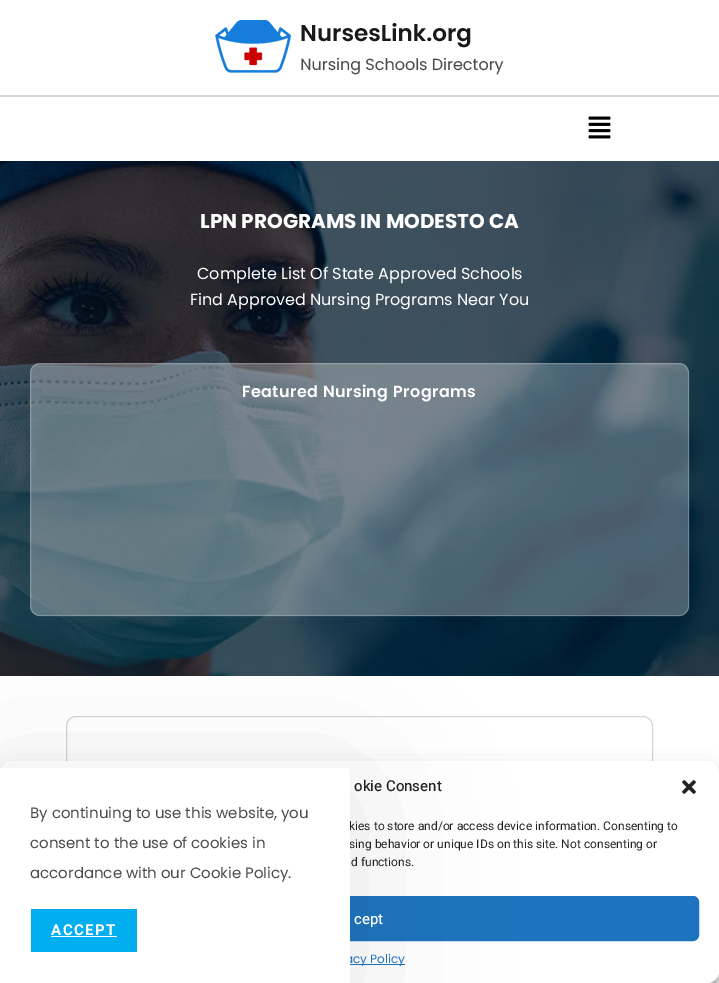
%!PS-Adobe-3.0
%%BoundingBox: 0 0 719 983
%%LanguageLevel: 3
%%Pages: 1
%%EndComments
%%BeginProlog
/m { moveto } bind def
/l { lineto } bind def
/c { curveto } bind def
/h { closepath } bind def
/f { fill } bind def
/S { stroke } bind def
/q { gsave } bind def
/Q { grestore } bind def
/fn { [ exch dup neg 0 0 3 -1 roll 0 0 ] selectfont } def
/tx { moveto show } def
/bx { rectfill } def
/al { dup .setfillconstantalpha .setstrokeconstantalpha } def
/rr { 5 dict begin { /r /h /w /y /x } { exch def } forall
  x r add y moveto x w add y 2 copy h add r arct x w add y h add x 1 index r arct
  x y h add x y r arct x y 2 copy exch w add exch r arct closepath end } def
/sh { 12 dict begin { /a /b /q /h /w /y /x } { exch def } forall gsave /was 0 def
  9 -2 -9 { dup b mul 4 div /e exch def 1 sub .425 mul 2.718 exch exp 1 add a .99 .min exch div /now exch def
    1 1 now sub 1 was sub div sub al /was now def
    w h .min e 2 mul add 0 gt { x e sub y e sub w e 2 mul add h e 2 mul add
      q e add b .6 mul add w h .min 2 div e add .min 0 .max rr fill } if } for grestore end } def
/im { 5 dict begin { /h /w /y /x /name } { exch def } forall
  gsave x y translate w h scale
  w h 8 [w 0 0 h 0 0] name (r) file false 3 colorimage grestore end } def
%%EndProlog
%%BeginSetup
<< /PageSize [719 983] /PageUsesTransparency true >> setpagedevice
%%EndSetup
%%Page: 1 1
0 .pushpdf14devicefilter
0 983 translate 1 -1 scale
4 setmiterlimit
1 setgray
0 0 719 983 bx
0.835 setgray
0 95 719 2 bx
(image0.raw) 215 20 289 55 im
(image1.raw) 588 116 23 23 im
(image2.raw) 0 161 719 515 im
/Poppins-Bold 20 fn
1 setgray
(LPN PROGRAMS IN MODESTO CA) 200 228 tx
/Poppins-Regular 16 fn
(Complete List Of State Approved Schools) 197 279 tx
(Find Approved Nursing Programs Near You) 190 305 tx
0.29 al
30 363 659 253 10 rr f
0.22 al
30.5 363.5 658 252 9.5 rr S
/Poppins-SemiBold 16 fn
1 al
242 397 m 0.4 0 (Featured Nursing Programs) ashow
0.835 setgray
66.5 716.5 586 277 9.5 rr S
0 setgray
0 767 719 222 12 3 0.23 sh
0 771 719 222 12 10 0.19 sh
1 setgray
0 761 719 222 12 rr f
0.118 0.451 0.745 setrgbcolor
20.5 896.5 678 44 5.5 rr q f Q
S
350 964 55 1 bx
0 setgray
0 788 350 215 4 75 0.1 sh
/Heebo-Regular 12 fn
0.133 setgray
(kies to store and/or access device information. Consenting to) 349 830 tx
(sing behavior or unique IDs on this site. Not consenting or) 349 848 tx
/Poppins-Regular 12 fn
0.118 0.451 0.745 setrgbcolor
(acy Policy) 345 963 tx
1 setgray
0 768 m 346 768 l 348 768 350 770 350 772 c 350 983 l 0 983 l h f
/Poppins-Regular 15 fn
0.294 setgray
(By continuing to use this website, you) 30 818 tx
(consent to the use of cookies in) 30 848 tx
(accordance with our Cookie Policy.) 30 878 tx
0.004 0.682 0.941 setrgbcolor
31 909 106 43 bx
/Heebo-Bold 15 fn
1 setgray
51 935 m 1.5 0 (ACCEPT) ashow
51 936 66 1 bx
/Heebo-Medium 15 fn
0.133 setgray
(okie Consent) 354 791 tx
(image3.raw) 682 780 14 14 im
/Heebo-Regular 12 fn
(d functions.) 351 866 tx
/Heebo-Medium 15 fn
1 setgray
(cept) 354 924 tx
.poppdf14devicefilter showpage
%%EOF
